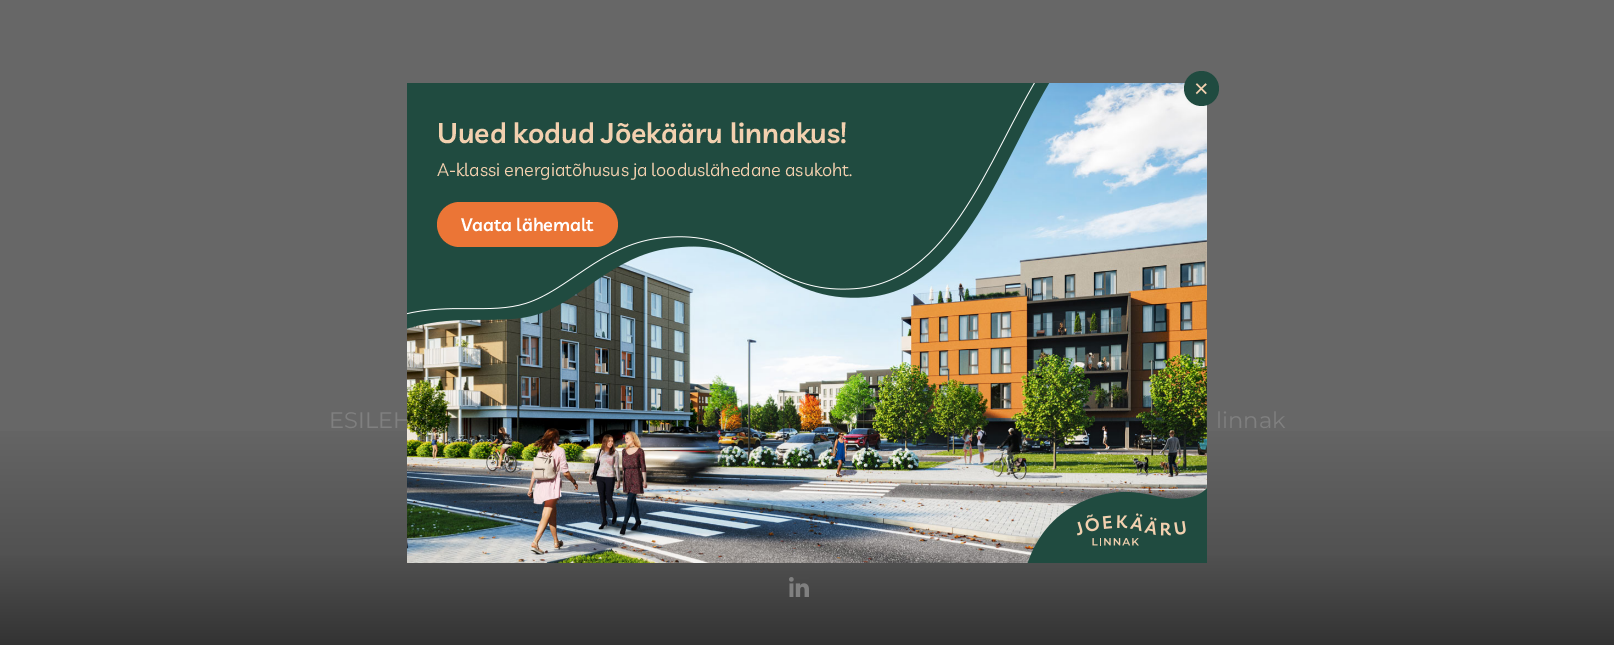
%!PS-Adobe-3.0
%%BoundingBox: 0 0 1614 645
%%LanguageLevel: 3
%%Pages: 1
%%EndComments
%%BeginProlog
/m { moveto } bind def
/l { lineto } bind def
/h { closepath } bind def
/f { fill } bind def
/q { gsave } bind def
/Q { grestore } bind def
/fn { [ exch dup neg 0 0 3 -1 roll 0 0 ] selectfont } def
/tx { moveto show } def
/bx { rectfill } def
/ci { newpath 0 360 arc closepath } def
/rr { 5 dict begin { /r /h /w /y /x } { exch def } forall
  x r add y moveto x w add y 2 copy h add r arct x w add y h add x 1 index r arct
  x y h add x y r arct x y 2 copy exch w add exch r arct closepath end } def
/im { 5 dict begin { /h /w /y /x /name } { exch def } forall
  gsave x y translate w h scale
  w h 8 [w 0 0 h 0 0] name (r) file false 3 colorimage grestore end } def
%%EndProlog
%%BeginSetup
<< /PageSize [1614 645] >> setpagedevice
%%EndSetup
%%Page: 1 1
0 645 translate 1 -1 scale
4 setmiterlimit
0.404 setgray
0 0 1614 645 bx
/Montserrat-Regular 22.5 fn
0.502 setgray
(ESILEH) 329 428 tx
q 0 431 m 1614 431 l 1614 645 l 0 645 l h clip newpath
<< /ShadingType 2 /ColorSpace /DeviceRGB /Coords [807 415 807 645] /Extend [true true] /Function << /FunctionType 3 /Domain [0 1] /Functions [<< /FunctionType 2 /Domain [0 1] /C0 [0.404 0.404 0.404] /C1 [0.322 0.322 0.322] /N 1 >> << /FunctionType 2 /Domain [0 1] /C0 [0.322 0.322 0.322] /C1 [0.2 0.2 0.2] /N 1 >>] /Bounds [0.6] /Encode [0 1 0 1] >> >> shfill Q
(image0.raw) 407 83 800 480 im
(image1.raw) 407 83 643 246 im
0.125 0.294 0.251 setrgbcolor
1201.5 88.5 17.5 ci f
/LiberationSans-Regular 25 fn
0.949 0.816 0.686 setrgbcolor
(×) 1194 97 tx
/Livvic-SemiBold 28 fn
(Uued kodud Jõekääru linnakus!) 437 143 tx
/Livvic-Regular 18 fn
(A-klassi energiatõhusus ja looduslähedane asukoht.) 437 176 tx
0.922 0.459 0.212 setrgbcolor
437 202 181 45 22.5 rr f
/Livvic-SemiBold 18 fn
1 setgray
(Vaata lähemalt) 461 231 tx
(image2.raw) 1027 488 180 75 im
/Montserrat-Regular 22.5 fn
0.502 setgray
(linnak) 1216 428 tx
(image3.raw) 789 577 20 20 im
showpage
%%EOF
